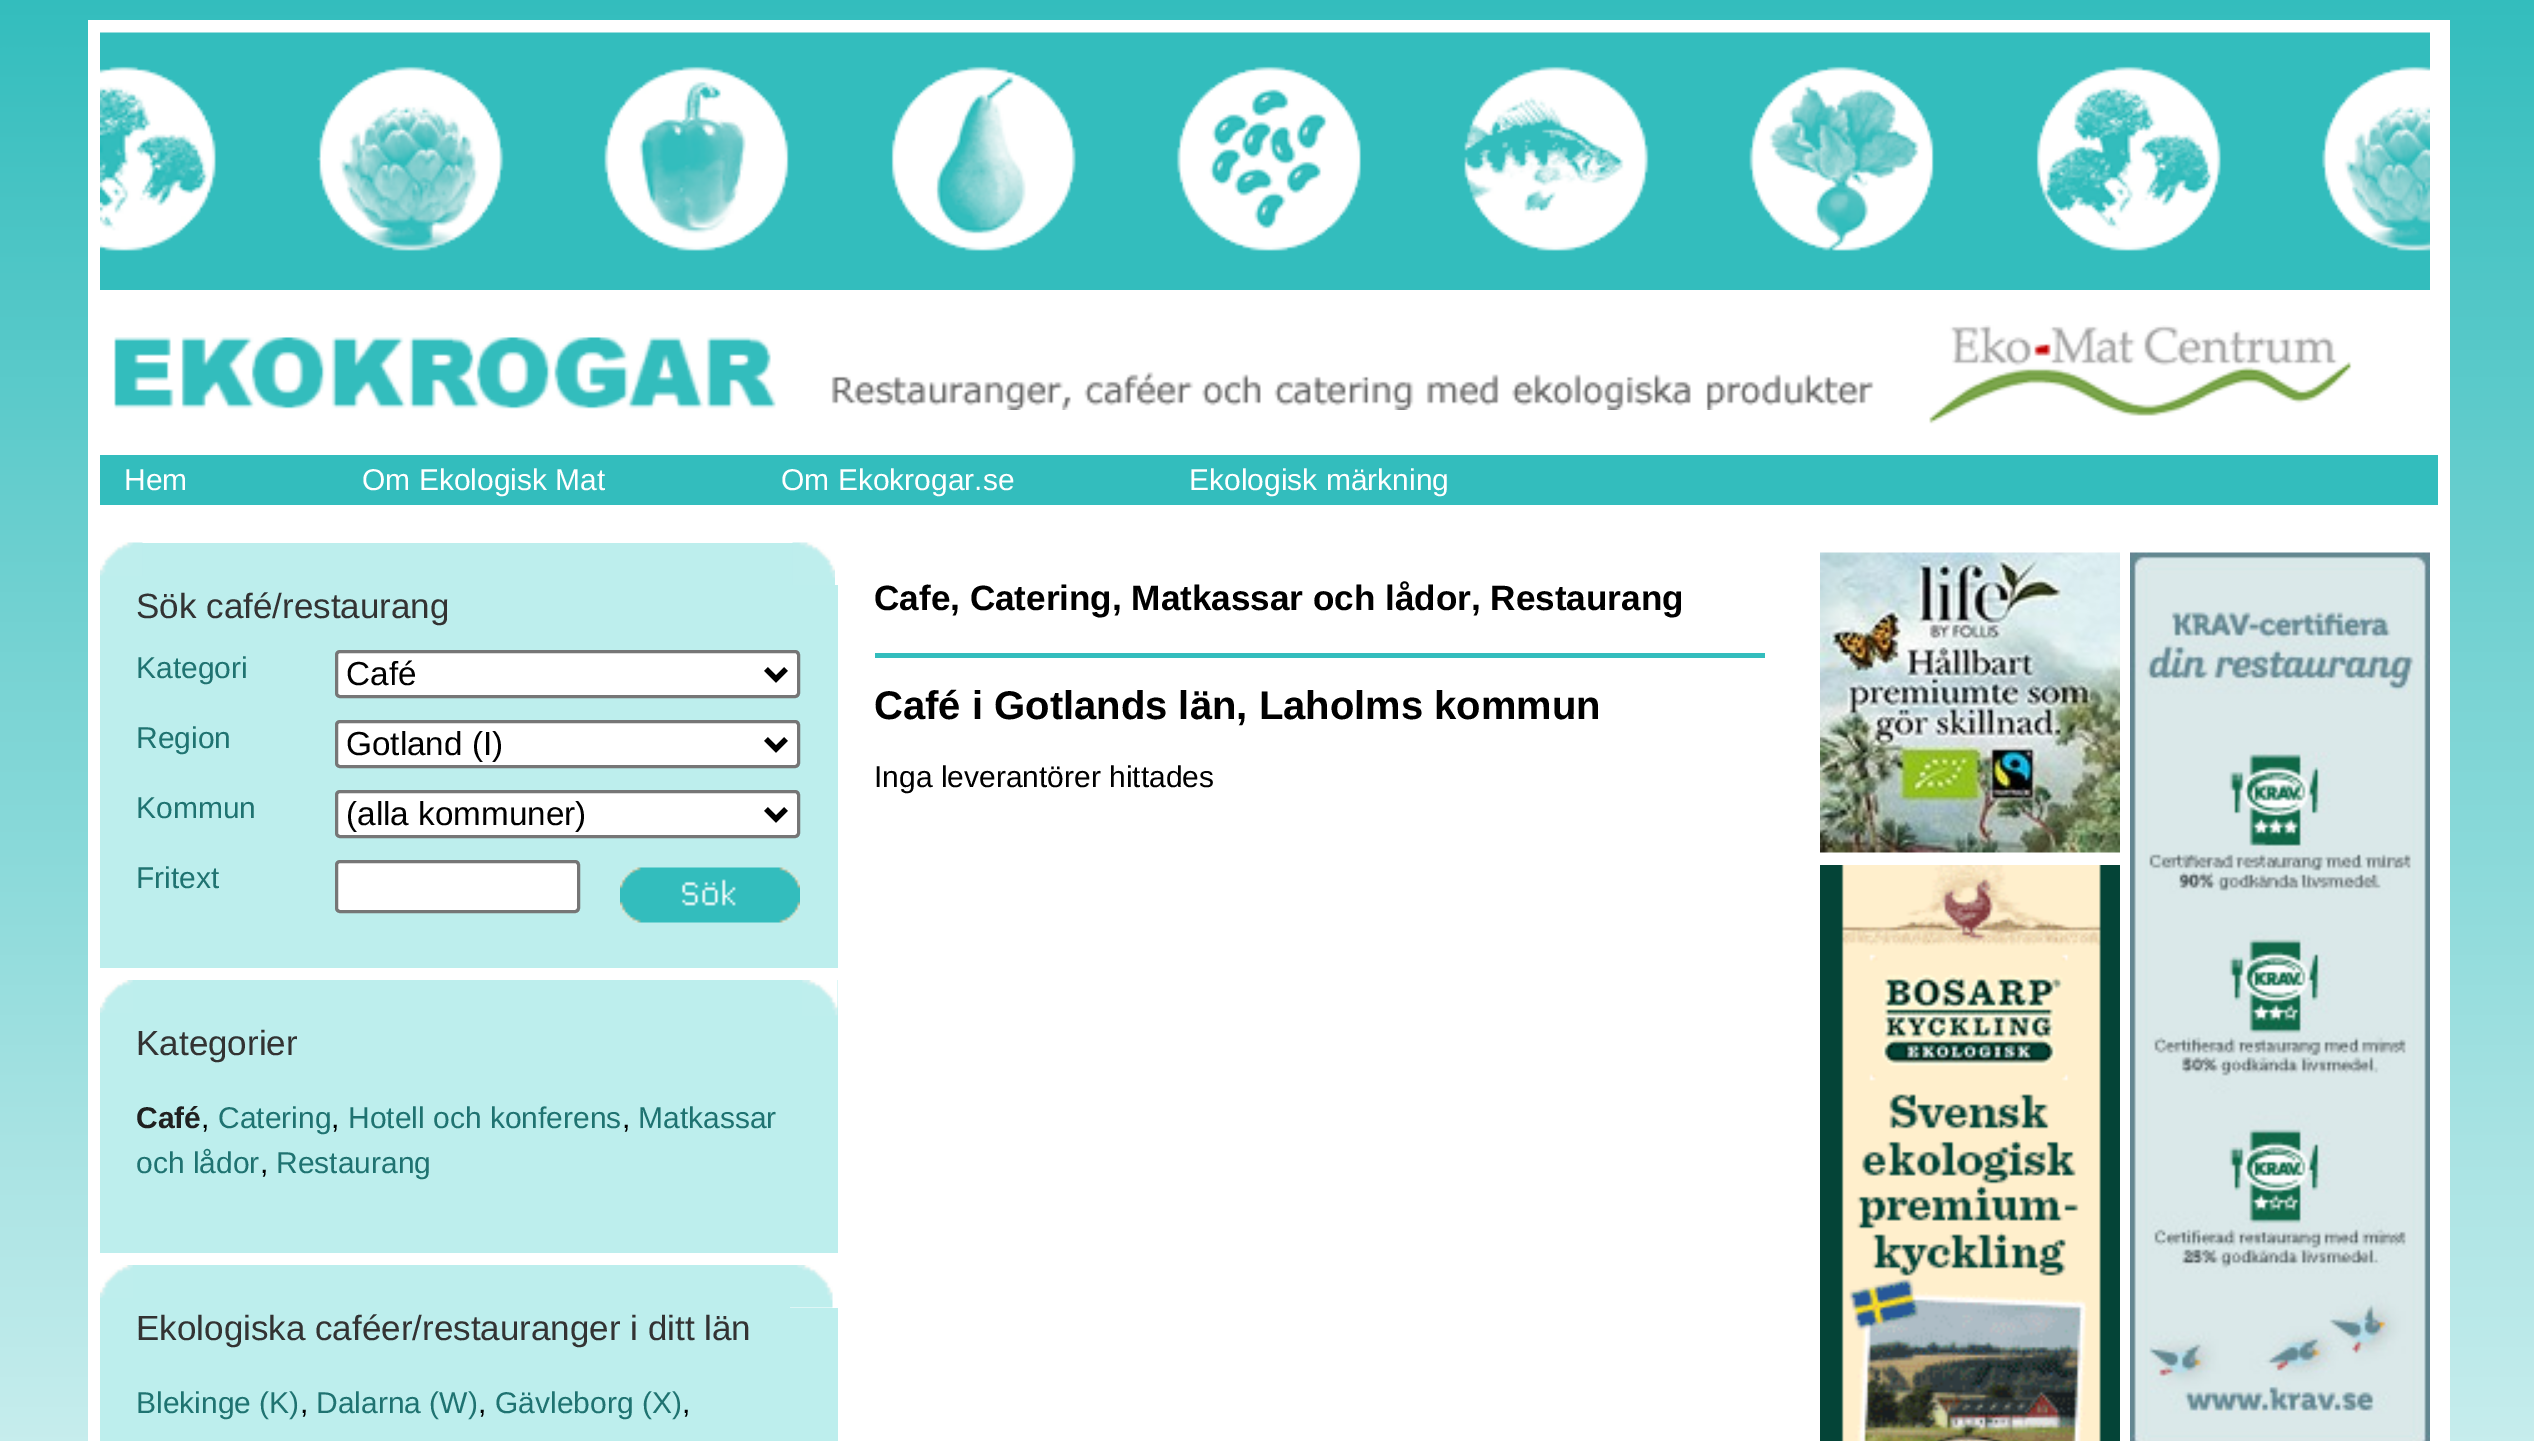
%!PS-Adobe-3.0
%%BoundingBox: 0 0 2534 1441
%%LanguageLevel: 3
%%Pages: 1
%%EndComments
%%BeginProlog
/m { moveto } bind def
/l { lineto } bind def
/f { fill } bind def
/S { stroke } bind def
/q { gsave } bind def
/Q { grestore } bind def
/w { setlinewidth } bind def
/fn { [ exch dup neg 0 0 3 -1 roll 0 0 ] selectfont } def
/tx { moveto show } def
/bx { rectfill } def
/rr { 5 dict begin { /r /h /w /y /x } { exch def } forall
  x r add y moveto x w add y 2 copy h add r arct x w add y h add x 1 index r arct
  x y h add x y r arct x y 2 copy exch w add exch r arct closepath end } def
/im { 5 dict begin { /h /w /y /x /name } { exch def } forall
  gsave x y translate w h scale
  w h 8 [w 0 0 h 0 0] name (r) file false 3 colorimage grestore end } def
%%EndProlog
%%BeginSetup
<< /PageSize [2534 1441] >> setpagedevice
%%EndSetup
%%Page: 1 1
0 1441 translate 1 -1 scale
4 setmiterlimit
1 setgray
0 0 2534 1441 bx
(image0.raw) 0 0 2534 1441 im
88 20 2362 1421 bx
(image1.raw) 100 32 2330 258 im
(image2.raw) 114 337 1760 73 im
(image3.raw) 1929 325 423 99 im
0.2 0.741 0.741 setrgbcolor
100 455 2338 50 bx
/LiberationSans-Regular 30 fn
1 setgray
(Hem) 124 490 tx
(Om Ekologisk Mat) 362 490 tx
(Om Ekokrogar.se) 781 490 tx
(Ekologisk märkning) 1189 490 tx
0.741 0.933 0.929 setrgbcolor
100 543 693 42 bx
(image4.raw) 100 542 43 34 im
(image5.raw) 792 542 43 43 im
100 585 738 383 bx
/LiberationSans-Regular 35 fn
0.2 setgray
(Sök café/restaurang) 136 618 tx
/LiberationSans-Regular 30 fn
0.122 0.451 0.443 setrgbcolor
(Kategori) 136 678 tx
1 setgray
336.5 651.5 462 45 3.5 rr q f Q
0.463 setgray
3 w
S
0 setgray
5 w
766 669 m 776 679 l 786 669 l S
/LiberationSans-Regular 33.25 fn
(Café) 346 685 tx
/LiberationSans-Regular 30 fn
0.122 0.451 0.443 setrgbcolor
(Region) 136 748 tx
1 setgray
336.5 721.5 462 45 3.5 rr q f Q
0.463 setgray
3 w
S
0 setgray
5 w
766 739 m 776 749 l 786 739 l S
/LiberationSans-Regular 33.25 fn
(Gotland \(I\)) 346 755 tx
/LiberationSans-Regular 30 fn
0.122 0.451 0.443 setrgbcolor
(Kommun) 136 818 tx
1 setgray
336.5 791.5 462 45 3.5 rr q f Q
0.463 setgray
3 w
S
0 setgray
5 w
766 809 m 776 819 l 786 809 l S
/LiberationSans-Regular 33.25 fn
(\(alla kommuner\)) 346 825 tx
/LiberationSans-Regular 30 fn
0.122 0.451 0.443 setrgbcolor
(Fritext) 136 888 tx
1 setgray
336.5 861.5 242 50 3.5 rr q f Q
0.463 setgray
3 w
S
(image6.raw) 620 867 180 56 im
0.741 0.933 0.929 setrgbcolor
100 980 738 273 bx
(image7.raw) 100 980 33 33 im
(image8.raw) 802 980 36 36 im
/LiberationSans-Regular 35 fn
0.2 setgray
(Kategorier) 136 1055 tx
/LiberationSans-Bold 30 fn
0.125 setgray
(Café) 136 1128 tx
/LiberationSans-Regular 30 fn
0 setgray
(,) 201 1128 tx
0.122 0.451 0.443 setrgbcolor
(Catering) 218 1128 tx
0 setgray
(,) 331 1128 tx
0.122 0.451 0.443 setrgbcolor
(Hotell och konferens) 348 1128 tx
0 setgray
(,) 622 1128 tx
0.122 0.451 0.443 setrgbcolor
(Matkassar) 638 1128 tx
(och lådor) 136 1173 tx
0 setgray
(,) 260 1173 tx
0.122 0.451 0.443 setrgbcolor
(Restaurang) 276 1173 tx
0.741 0.933 0.929 setrgbcolor
100 1265 690 43 bx
(image7.raw) 100 1265 33 33 im
(image9.raw) 790 1265 43 43 im
100 1308 738 133 bx
/LiberationSans-Regular 35 fn
0.2 setgray
(Ekologiska caféer/restauranger i ditt län) 136 1340 tx
/LiberationSans-Regular 30 fn
0.122 0.451 0.443 setrgbcolor
(Blekinge \(K\)) 136 1413 tx
0 setgray
(,) 300 1413 tx
0.122 0.451 0.443 setrgbcolor
(Dalarna \(W\)) 316 1413 tx
0 setgray
(,) 478 1413 tx
0.122 0.451 0.443 setrgbcolor
(Gävleborg \(X\)) 495 1413 tx
0 setgray
(,) 682 1413 tx
0.2 0.741 0.741 setrgbcolor
875 653 890 5 bx
/LiberationSans-Bold 35.1 fn
0 setgray
(Cafe, Catering, Matkassar och lådor, Restaurang) 874 610 tx
/LiberationSans-Bold 40 fn
(Café i Gotlands län, Laholms kommun) 874 719 tx
/LiberationSans-Regular 30 fn
(Inga leverantörer hittades) 874 787 tx
(image10.raw) 1820 552 300 301 im
(image11.raw) 1820 865 300 576 im
(image12.raw) 2130 552 300 889 im
showpage
%%EOF
